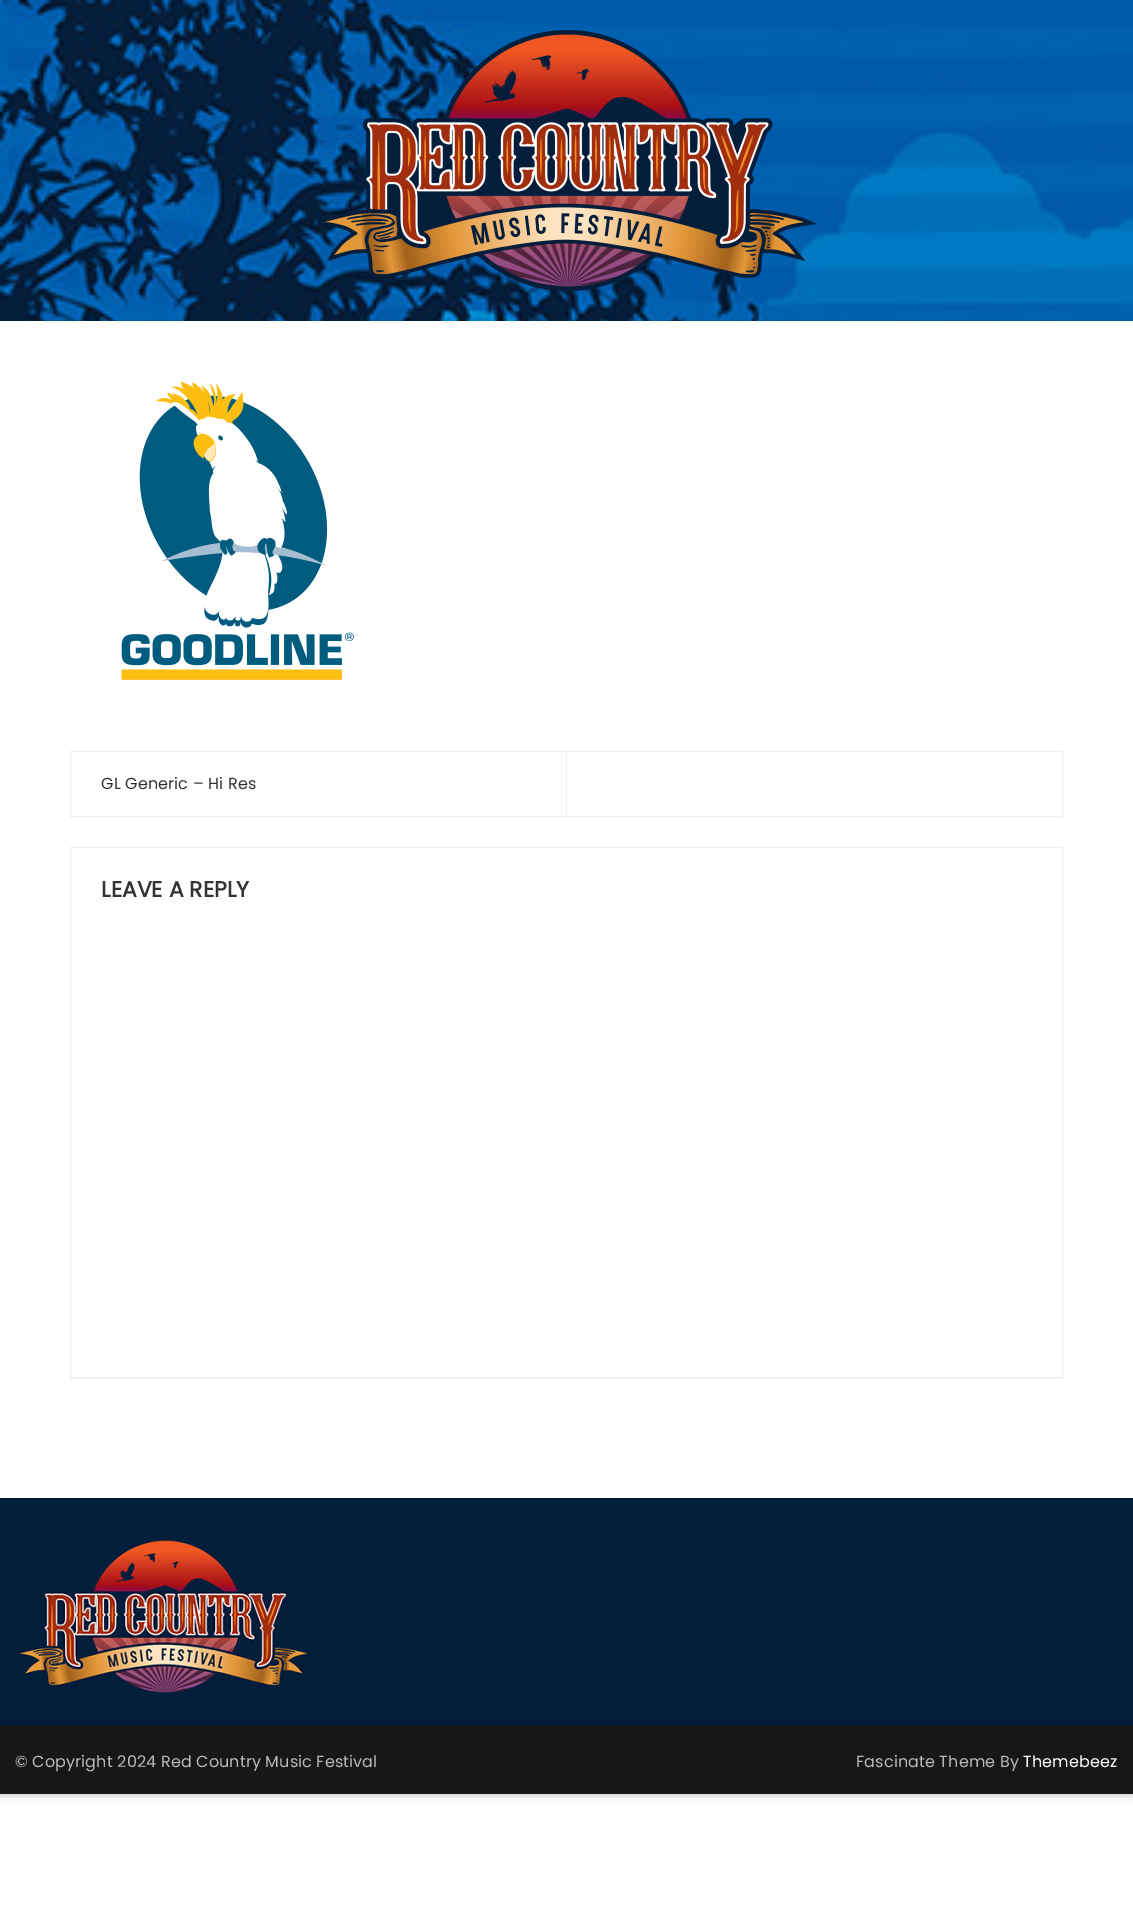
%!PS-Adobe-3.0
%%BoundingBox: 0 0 1133 1924
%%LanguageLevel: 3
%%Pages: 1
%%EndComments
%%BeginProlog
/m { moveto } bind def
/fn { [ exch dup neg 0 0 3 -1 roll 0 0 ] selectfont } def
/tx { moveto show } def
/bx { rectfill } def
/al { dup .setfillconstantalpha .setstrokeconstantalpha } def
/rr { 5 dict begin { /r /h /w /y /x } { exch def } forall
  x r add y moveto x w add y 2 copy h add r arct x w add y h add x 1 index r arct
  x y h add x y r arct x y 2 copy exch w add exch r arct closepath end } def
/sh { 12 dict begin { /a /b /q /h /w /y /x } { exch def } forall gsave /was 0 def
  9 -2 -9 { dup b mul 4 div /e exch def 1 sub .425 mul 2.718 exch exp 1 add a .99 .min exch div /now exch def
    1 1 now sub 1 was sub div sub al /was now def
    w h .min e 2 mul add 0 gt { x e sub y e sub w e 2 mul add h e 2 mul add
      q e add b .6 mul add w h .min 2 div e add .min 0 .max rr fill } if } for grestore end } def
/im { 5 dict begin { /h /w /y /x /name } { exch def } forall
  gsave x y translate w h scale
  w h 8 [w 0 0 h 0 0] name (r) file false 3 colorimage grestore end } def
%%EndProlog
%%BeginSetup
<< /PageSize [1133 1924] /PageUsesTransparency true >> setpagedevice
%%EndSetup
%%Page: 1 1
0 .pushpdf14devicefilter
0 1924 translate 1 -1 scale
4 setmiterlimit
1 setgray
0 0 1133 1924 bx
(image0.raw) 0 0 1133 321 im
(image1.raw) 317 30 500 261 im
(image2.raw) 121 381 233 299 im
0.933 setgray
70.5 751.5 992 65 rectstroke
566 752 1 64 bx
/Poppins-Regular 16 fn
0.2 setgray
101 789 m 0.15 0 (GL Generic – Hi Res) ashow
0.933 setgray
70.5 847.5 992 530 rectstroke
/Poppins-Bold 22 fn
0.2 setgray
(LEAVE A REPLY) 101 897 tx
0.012 0.118 0.231 setrgbcolor
0 1498 1133 227 bx
(image3.raw) 18 1540 290 153 im
0 setgray
0 1727 1133 69 0 3 0.2 sh
0.09 setgray
0 1725 1133 69 bx
/Poppins-Regular 16 fn
0.725 setgray
15 1767 m 0.15 0 (© Copyright 2024 Red Country Music Festival) ashow
856 1767 m 0.15 0 (Fascinate Theme By) ashow
1 setgray
1023 1767 m 0.15 0 (Themebeez) ashow
.poppdf14devicefilter showpage
%%EOF
